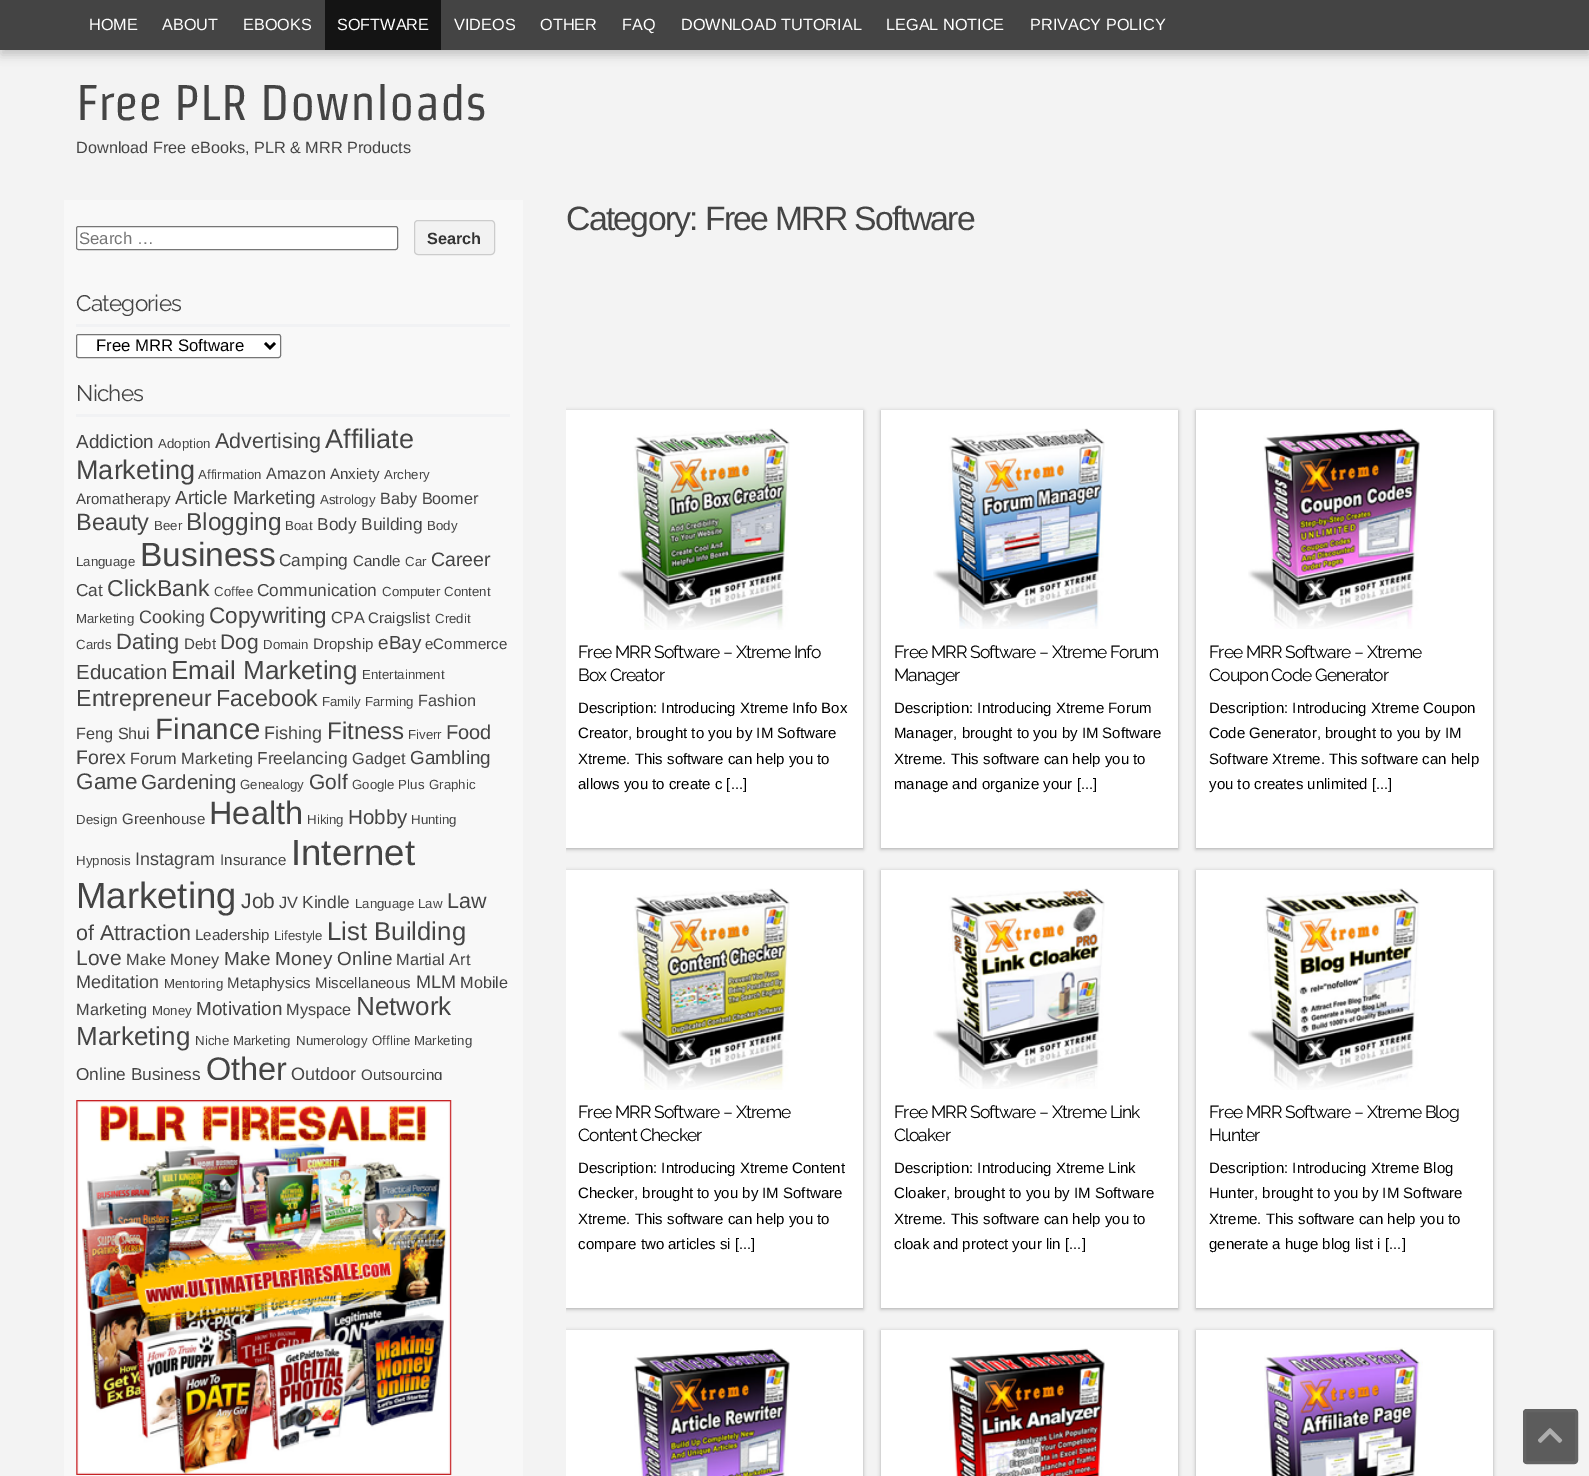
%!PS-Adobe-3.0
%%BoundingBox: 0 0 1589 1476
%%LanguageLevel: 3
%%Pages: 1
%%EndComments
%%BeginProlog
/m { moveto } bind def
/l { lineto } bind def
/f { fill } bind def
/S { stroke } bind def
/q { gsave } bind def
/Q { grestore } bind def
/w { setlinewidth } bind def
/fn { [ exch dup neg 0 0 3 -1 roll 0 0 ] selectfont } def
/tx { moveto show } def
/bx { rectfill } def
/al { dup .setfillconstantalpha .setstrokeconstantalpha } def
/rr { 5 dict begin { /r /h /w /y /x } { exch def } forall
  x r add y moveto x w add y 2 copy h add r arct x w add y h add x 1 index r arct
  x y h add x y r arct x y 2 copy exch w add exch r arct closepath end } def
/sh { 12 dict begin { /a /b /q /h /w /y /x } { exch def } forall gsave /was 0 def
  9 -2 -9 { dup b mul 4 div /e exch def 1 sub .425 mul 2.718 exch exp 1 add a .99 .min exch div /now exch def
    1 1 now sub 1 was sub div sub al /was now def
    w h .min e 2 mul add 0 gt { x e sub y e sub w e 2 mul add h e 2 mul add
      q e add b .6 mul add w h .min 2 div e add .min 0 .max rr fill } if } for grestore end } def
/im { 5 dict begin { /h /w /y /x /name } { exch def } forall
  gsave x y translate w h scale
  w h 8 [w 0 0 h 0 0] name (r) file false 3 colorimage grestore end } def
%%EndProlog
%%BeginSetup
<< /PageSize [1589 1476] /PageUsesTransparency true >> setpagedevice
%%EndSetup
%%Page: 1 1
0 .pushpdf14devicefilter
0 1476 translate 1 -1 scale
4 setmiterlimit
0.953 setgray
0 0 1589 1476 bx
0 setgray
1 8 1588 47 0 5 0.2 sh
0.267 setgray
0 0 1589 50 bx
/LiberationSans-Regular 16.25 fn
1 setgray
(HOME) 89 30 tx
(ABOUT) 162 30 tx
(EBOOKS) 243 30 tx
0.078 setgray
325 0 116 50 bx
1 setgray
(SOFTWARE) 337 30 tx
(VIDEOS) 454 30 tx
(OTHER) 540 30 tx
(FAQ) 622 30 tx
(DOWNLOAD TUTORIAL) 681 30 tx
(LEGAL NOTICE) 886 30 tx
(PRIVACY POLICY) 1030 30 tx
/Strait-Regular 50 fn
0.267 setgray
(Free PLR Downloads) 76 120 tx
/LiberationSans-Regular 16.25 fn
(Download Free eBooks, PLR & MRR Products) 76 153 tx
0.973 setgray
64 200 459 1276 bx
1 setgray
76.5 226.5 321 23 2 rr q f Q
0.463 setgray
S
/LiberationSans-Regular 16.75 fn
0.459 setgray
(Search …) 79 244 tx
0.949 setgray
414.5 220.5 80 34 3.5 rr q f Q
0.8 setgray
S
/LiberationSans-Bold 16.25 fn
0.2 setgray
(Search) 427 244 tx
0.945 0.949 0.957 setrgbcolor
76 324 434 3 bx
/Raleway-Regular 22.5 fn
0.267 setgray
76 311 m -0.75 0 (Categories) ashow
1 setgray
76.5 334.5 204 23 2 rr q f Q
0.463 setgray
S
0 setgray
2.5 w
265 343 m 270 348 l 275 343 l S
/LiberationSans-Regular 16.75 fn
(Free MRR Software) 96 351 tx
0.945 0.949 0.957 setrgbcolor
76 414 434 3 bx
/Raleway-Regular 22.5 fn
0.267 setgray
76 401 m -0.75 0 (Niches) ashow
/LiberationSans-Regular 18.9 fn
(Addiction) 76 448 tx
/LiberationSans-Regular 13.25 fn
(Adoption) 158 448 tx
/LiberationSans-Regular 21.5 fn
(Advertising) 215 448 tx
/LiberationSans-Regular 27 fn
(Affiliate) 325 448 tx
(Marketing) 76 479 tx
/LiberationSans-Regular 13.25 fn
(Affirmation) 198 479 tx
/LiberationSans-Regular 16.25 fn
(Amazon) 266 479 tx
/LiberationSans-Regular 15.1 fn
(Anxiety) 330 479 tx
/LiberationSans-Regular 13.25 fn
(Archery) 384 479 tx
/LiberationSans-Regular 15.1 fn
(Aromatherapy) 76 504 tx
/LiberationSans-Regular 18.9 fn
(Article Marketing) 175 504 tx
/LiberationSans-Regular 13.25 fn
(Astrology) 320 504 tx
/LiberationSans-Regular 16.25 fn
(Baby Boomer) 380 504 tx
/LiberationSans-Regular 23.5 fn
(Beauty) 76 530 tx
/LiberationSans-Regular 13.25 fn
(Beer) 154 530 tx
/LiberationSans-Regular 24.5 fn
(Blogging) 186 530 tx
/LiberationSans-Regular 13.25 fn
(Boat) 285 530 tx
/LiberationSans-Regular 17.25 fn
(Body Building) 317 530 tx
/LiberationSans-Regular 13.25 fn
(Body) 427 530 tx
(Language) 76 566 tx
/LiberationSans-Regular 33.5 fn
(Business) 140 566 tx
/LiberationSans-Regular 17.25 fn
(Camping) 279 566 tx
/LiberationSans-Regular 15.1 fn
(Candle) 353 566 tx
/LiberationSans-Regular 13.25 fn
(Car) 405 566 tx
/LiberationSans-Regular 19.5 fn
(Career) 431 566 tx
/LiberationSans-Regular 17.25 fn
(Cat) 76 596 tx
/LiberationSans-Regular 23 fn
(ClickBank) 107 596 tx
/LiberationSans-Regular 13.25 fn
(Coffee) 214 596 tx
/LiberationSans-Regular 17.25 fn
(Communication) 257 596 tx
/LiberationSans-Regular 13.25 fn
(Computer) 382 596 tx
(Content) 444 596 tx
(Marketing) 76 623 tx
/LiberationSans-Regular 18 fn
(Cooking) 139 623 tx
/LiberationSans-Regular 22.5 fn
(Copywriting) 209 623 tx
/LiberationSans-Regular 16.25 fn
(CPA) 331 623 tx
/LiberationSans-Regular 15.1 fn
(Craigslist) 368 623 tx
/LiberationSans-Regular 13.25 fn
(Credit) 435 623 tx
(Cards) 76 649 tx
/LiberationSans-Regular 22 fn
(Dating) 116 649 tx
/LiberationSans-Regular 15.1 fn
(Debt) 184 649 tx
/LiberationSans-Regular 21 fn
(Dog) 220 649 tx
/LiberationSans-Regular 13.25 fn
(Domain) 263 649 tx
/LiberationSans-Regular 15.1 fn
(Dropship) 313 649 tx
/LiberationSans-Regular 18.9 fn
(eBay) 378 649 tx
/LiberationSans-Regular 15.1 fn
(eCommerce) 425 649 tx
/LiberationSans-Regular 20.5 fn
(Education) 76 679 tx
/LiberationSans-Regular 26 fn
(Email Marketing) 171 679 tx
/LiberationSans-Regular 13.25 fn
(Entertainment) 362 679 tx
/LiberationSans-Regular 23.25 fn
(Entrepreneur) 76 706 tx
(Facebook) 216 706 tx
/LiberationSans-Regular 13.25 fn
(Family) 322 706 tx
(Farming) 365 706 tx
/LiberationSans-Regular 16.25 fn
(Fashion) 418 706 tx
(Feng Shui) 76 739 tx
/LiberationSans-Regular 29.5 fn
(Finance) 155 739 tx
/LiberationSans-Regular 18 fn
(Fishing) 264 739 tx
/LiberationSans-Regular 24 fn
(Fitness) 327 739 tx
/LiberationSans-Regular 13.25 fn
(Fiverr) 408 739 tx
/LiberationSans-Regular 20 fn
(Food) 446 739 tx
/LiberationSans-Regular 19.5 fn
(Forex) 76 764 tx
/LiberationSans-Regular 16.25 fn
(Forum Marketing) 130 764 tx
/LiberationSans-Regular 17.25 fn
(Freelancing) 257 764 tx
/LiberationSans-Regular 16.25 fn
(Gadget) 352 764 tx
/LiberationSans-Regular 18.9 fn
(Gambling) 410 764 tx
/LiberationSans-Regular 22.5 fn
(Game) 76 789 tx
/LiberationSans-Regular 20.5 fn
(Gardening) 141 789 tx
/LiberationSans-Regular 13.25 fn
(Genealogy) 240 789 tx
/LiberationSans-Regular 21 fn
(Golf) 309 789 tx
/LiberationSans-Regular 13.25 fn
(Google Plus) 352 789 tx
(Graphic) 429 789 tx
(Design) 76 824 tx
/LiberationSans-Regular 15.1 fn
(Greenhouse) 122 824 tx
/LiberationSans-Regular 32.5 fn
(Health) 209 824 tx
/LiberationSans-Regular 13.25 fn
(Hiking) 307 824 tx
/LiberationSans-Regular 20.5 fn
(Hobby) 348 824 tx
/LiberationSans-Regular 13.25 fn
(Hunting) 411 824 tx
(Hypnosis) 76 865 tx
/LiberationSans-Regular 18 fn
(Instagram) 135 865 tx
/LiberationSans-Regular 15.1 fn
(Insurance) 220 865 tx
/LiberationSans-Regular 36.5 fn
(Internet) 291 865 tx
(Marketing) 76 908 tx
/LiberationSans-Regular 21 fn
(Job) 241 908 tx
/LiberationSans-Regular 16.25 fn
(JV) 279 908 tx
/LiberationSans-Regular 17.25 fn
(Kindle) 302 908 tx
/LiberationSans-Regular 13.25 fn
(Language) 355 908 tx
(Law) 418 908 tx
/LiberationSans-Regular 21.5 fn
(Law) 447 908 tx
(of Attraction) 76 940 tx
/LiberationSans-Regular 15.1 fn
(Leadership) 195 940 tx
/LiberationSans-Regular 13.25 fn
(Lifestyle) 274 940 tx
/LiberationSans-Regular 25.75 fn
(List Building) 327 940 tx
/LiberationSans-Regular 21 fn
(Love) 76 965 tx
/LiberationSans-Regular 16.25 fn
(Make Money) 126 965 tx
/LiberationSans-Regular 18.9 fn
(Make Money Online) 224 965 tx
/LiberationSans-Regular 16.25 fn
(Martial Art) 396 965 tx
/LiberationSans-Regular 18 fn
(Meditation) 76 988 tx
/LiberationSans-Regular 13.25 fn
(Mentoring) 164 988 tx
/LiberationSans-Regular 15.1 fn
(Metaphysics Miscellaneous) 227 988 tx
/LiberationSans-Regular 18 fn
(MLM) 416 988 tx
/LiberationSans-Regular 16.25 fn
(Mobile) 460 988 tx
(Marketing) 76 1015 tx
/LiberationSans-Regular 13.25 fn
(Money) 152 1015 tx
/LiberationSans-Regular 18.9 fn
(Motivation) 196 1015 tx
/LiberationSans-Regular 16.25 fn
(Myspace) 286 1015 tx
/LiberationSans-Regular 26 fn
(Network) 356 1015 tx
(Marketing) 76 1045 tx
/LiberationSans-Regular 13.25 fn
(Niche Marketing) 195 1045 tx
(Numerology) 296 1045 tx
(Offline Marketing) 372 1045 tx
q
76 424 434 656 rectclip
/LiberationSans-Regular 17.25 fn
(Online Business) 76 1080 tx
/LiberationSans-Regular 32.5 fn
(Other) 206 1080 tx
/LiberationSans-Regular 18 fn
(Outdoor) 291 1080 tx
/LiberationSans-Regular 15.1 fn
(Outsourcing) 361 1080 tx
Q
(image0.raw) 76 1100 376 375 im
/LiberationSans-Regular 33.75 fn
566 230 m -1.7 0 (Category: Free MRR Software) ashow
q
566 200 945 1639 rectclip
0 setgray
566 411 297 438 0 2 0.3 sh
Q
1 setgray
566 410 297 438 bx
(image1.raw) 618 428 172 202 im
/Raleway-Regular 17.5 fn
0 setgray
578 658 m -0.9 0 (Free MRR Software – Xtreme Info) ashow
578 681 m -0.9 0 (Box Creator) ashow
/LiberationSans-Regular 15 fn
(Description: Introducing Xtreme Info Box) 578 713 tx
(Creator, brought to you by IM Software) 578 738 tx
(Xtreme. This software can help you to) 578 764 tx
(allows you to create c [...]) 578 789 tx
881 411 297 438 0 2 0.3 sh
1 setgray
881 410 297 438 bx
(image2.raw) 933 428 172 201 im
/Raleway-Regular 17.5 fn
0 setgray
894 658 m -0.9 0 (Free MRR Software – Xtreme Forum) ashow
894 681 m -0.9 0 (Manager) ashow
/LiberationSans-Regular 15 fn
(Description: Introducing Xtreme Forum) 894 713 tx
(Manager, brought to you by IM Software) 894 738 tx
(Xtreme. This software can help you to) 894 764 tx
(manage and organize your [...]) 894 789 tx
1196 411 297 438 0 2 0.3 sh
1 setgray
1196 410 297 438 bx
(image3.raw) 1248 428 172 201 im
/Raleway-Regular 17.5 fn
0 setgray
1209 658 m -0.9 0 (Free MRR Software – Xtreme) ashow
1209 681 m -0.9 0 (Coupon Code Generator) ashow
/LiberationSans-Regular 15 fn
(Description: Introducing Xtreme Coupon) 1209 713 tx
(Code Generator, brought to you by IM) 1209 738 tx
(Software Xtreme. This software can help) 1209 764 tx
(you to creates unlimited [...]) 1209 789 tx
q
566 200 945 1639 rectclip
566 871 297 438 0 2 0.3 sh
Q
1 setgray
566 870 297 438 bx
(image4.raw) 618 888 172 202 im
/Raleway-Regular 17.5 fn
0 setgray
578 1118 m -0.9 0 (Free MRR Software – Xtreme) ashow
578 1141 m -0.9 0 (Content Checker) ashow
/LiberationSans-Regular 15 fn
(Description: Introducing Xtreme Content) 578 1173 tx
(Checker, brought to you by IM Software) 578 1198 tx
(Xtreme. This software can help you to) 578 1224 tx
(compare two articles si [...]) 578 1249 tx
881 871 297 438 0 2 0.3 sh
1 setgray
881 870 297 438 bx
(image5.raw) 933 888 172 201 im
/Raleway-Regular 17.5 fn
0 setgray
894 1118 m -0.9 0 (Free MRR Software – Xtreme Link) ashow
894 1141 m -0.9 0 (Cloaker) ashow
/LiberationSans-Regular 15 fn
(Description: Introducing Xtreme Link) 894 1173 tx
(Cloaker, brought to you by IM Software) 894 1198 tx
(Xtreme. This software can help you to) 894 1224 tx
(cloak and protect your lin [...]) 894 1249 tx
1196 871 297 438 0 2 0.3 sh
1 setgray
1196 870 297 438 bx
(image6.raw) 1248 888 172 202 im
/Raleway-Regular 17.5 fn
0 setgray
1209 1118 m -0.9 0 (Free MRR Software – Xtreme Blog) ashow
1209 1141 m -0.9 0 (Hunter) ashow
/LiberationSans-Regular 15 fn
(Description: Introducing Xtreme Blog) 1209 1173 tx
(Hunter, brought to you by IM Software) 1209 1198 tx
(Xtreme. This software can help you to) 1209 1224 tx
(generate a huge blog list i [...]) 1209 1249 tx
q
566 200 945 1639 rectclip
566 1331 297 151 0 2 0.3 sh
Q
1 setgray
566 1330 297 146 bx
(image7.raw) 634 1348 156 128 im
0 setgray
881 1331 297 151 0 2 0.3 sh
1 setgray
881 1330 297 146 bx
(image8.raw) 949 1348 156 128 im
0 setgray
1196 1331 297 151 0 2 0.3 sh
1 setgray
1196 1330 297 146 bx
(image9.raw) 1264 1347 159 129 im
0.361 setgray
1523 1409 55 55 4 rr f
0.9 al
0.392 setgray
3 w
1524.5 1410.5 52 52 2.5 rr S
1 al
(image10.raw) 1538 1428 25 15 im
.poppdf14devicefilter showpage
%%EOF
